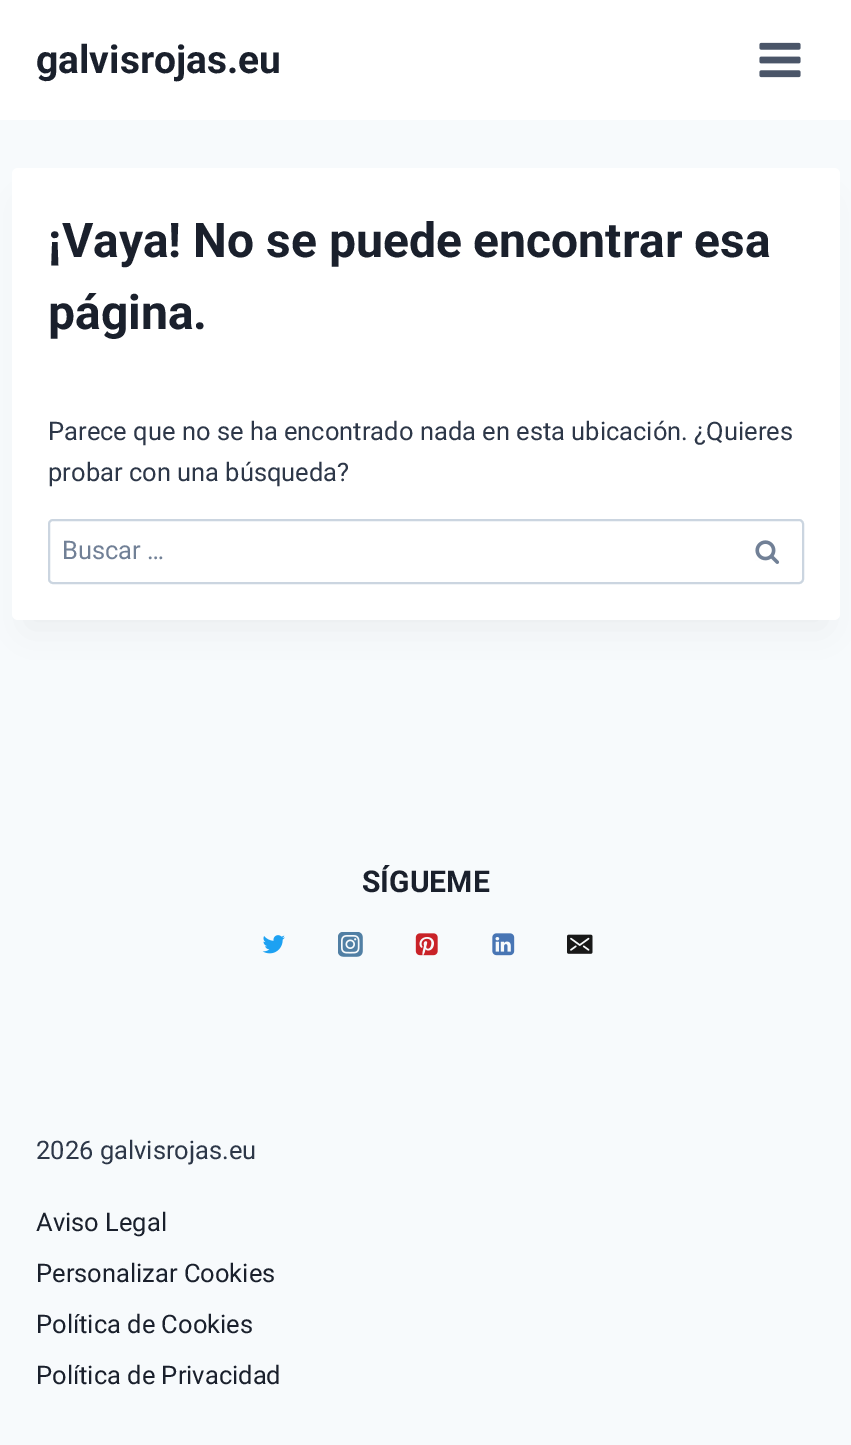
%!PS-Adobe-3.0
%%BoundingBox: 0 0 851 1445
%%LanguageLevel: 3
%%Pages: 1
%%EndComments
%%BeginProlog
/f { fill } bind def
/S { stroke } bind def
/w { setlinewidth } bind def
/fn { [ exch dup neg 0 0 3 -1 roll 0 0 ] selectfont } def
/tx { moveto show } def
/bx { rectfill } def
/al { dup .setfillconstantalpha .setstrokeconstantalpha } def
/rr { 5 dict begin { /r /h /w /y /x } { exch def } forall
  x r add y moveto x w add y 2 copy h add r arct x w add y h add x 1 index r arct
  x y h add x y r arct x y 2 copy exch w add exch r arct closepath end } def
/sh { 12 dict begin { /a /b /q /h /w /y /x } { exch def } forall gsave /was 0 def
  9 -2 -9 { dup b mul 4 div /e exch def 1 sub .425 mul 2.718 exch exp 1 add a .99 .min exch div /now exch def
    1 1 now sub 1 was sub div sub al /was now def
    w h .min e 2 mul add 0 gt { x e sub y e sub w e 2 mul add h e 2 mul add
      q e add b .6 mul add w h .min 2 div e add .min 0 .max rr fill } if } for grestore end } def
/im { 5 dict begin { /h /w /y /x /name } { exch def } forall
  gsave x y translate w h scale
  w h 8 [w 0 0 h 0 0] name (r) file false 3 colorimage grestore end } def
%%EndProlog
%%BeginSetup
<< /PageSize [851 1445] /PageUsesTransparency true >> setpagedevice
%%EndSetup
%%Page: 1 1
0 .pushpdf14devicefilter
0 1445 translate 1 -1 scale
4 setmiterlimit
0.969 0.98 0.988 setrgbcolor
0 0 851 1445 bx
1 setgray
0 0 851 120 bx
/Roboto-Bold 39 fn
0.102 0.125 0.173 setrgbcolor
(galvisrojas.eu) 36 73 tx
(image0.raw) 759 42 42 36 im
0 setgray
27 206 798 421 0 19 0.05 sh
1 setgray
12 168 828 452 6 rr f
/Roboto-Bold 48 fn
0.102 0.125 0.173 setrgbcolor
(¡Vaya! No se puede encontrar esa) 48 257 tx
(página.) 48 329 tx
/Roboto-Regular 25.5 fn
0.176 0.216 0.282 setrgbcolor
(Parece que no se ha encontrado nada en esta ubicación. ¿Quieres) 48 440 tx
(probar con una búsqueda?) 48 481 tx
0.796 0.835 0.878 setrgbcolor
2 w
49 520 754 63 4 rr S
0.443 0.502 0.588 setrgbcolor
(Buscar …) 62 559 tx
(image1.raw) 755 540 25 24 im
/Roboto-Bold 30 fn
0.102 0.125 0.173 setrgbcolor
(SÍGUEME) 362 892 tx
(image2.raw) 262 935 23 19 im
(image3.raw) 338 932 25 25 im
(image4.raw) 415 933 23 23 im
(image5.raw) 492 933 23 23 im
(image6.raw) 567 934 26 20 im
/Roboto-Regular 25.5 fn
0.176 0.216 0.282 setrgbcolor
(2026 galvisrojas.eu) 36 1159 tx
0.102 0.125 0.173 setrgbcolor
(Aviso Legal) 36 1231 tx
(Personalizar Cookies) 36 1282 tx
(Política de Cookies) 36 1333 tx
(Política de Privacidad) 36 1384 tx
.poppdf14devicefilter showpage
%%EOF
